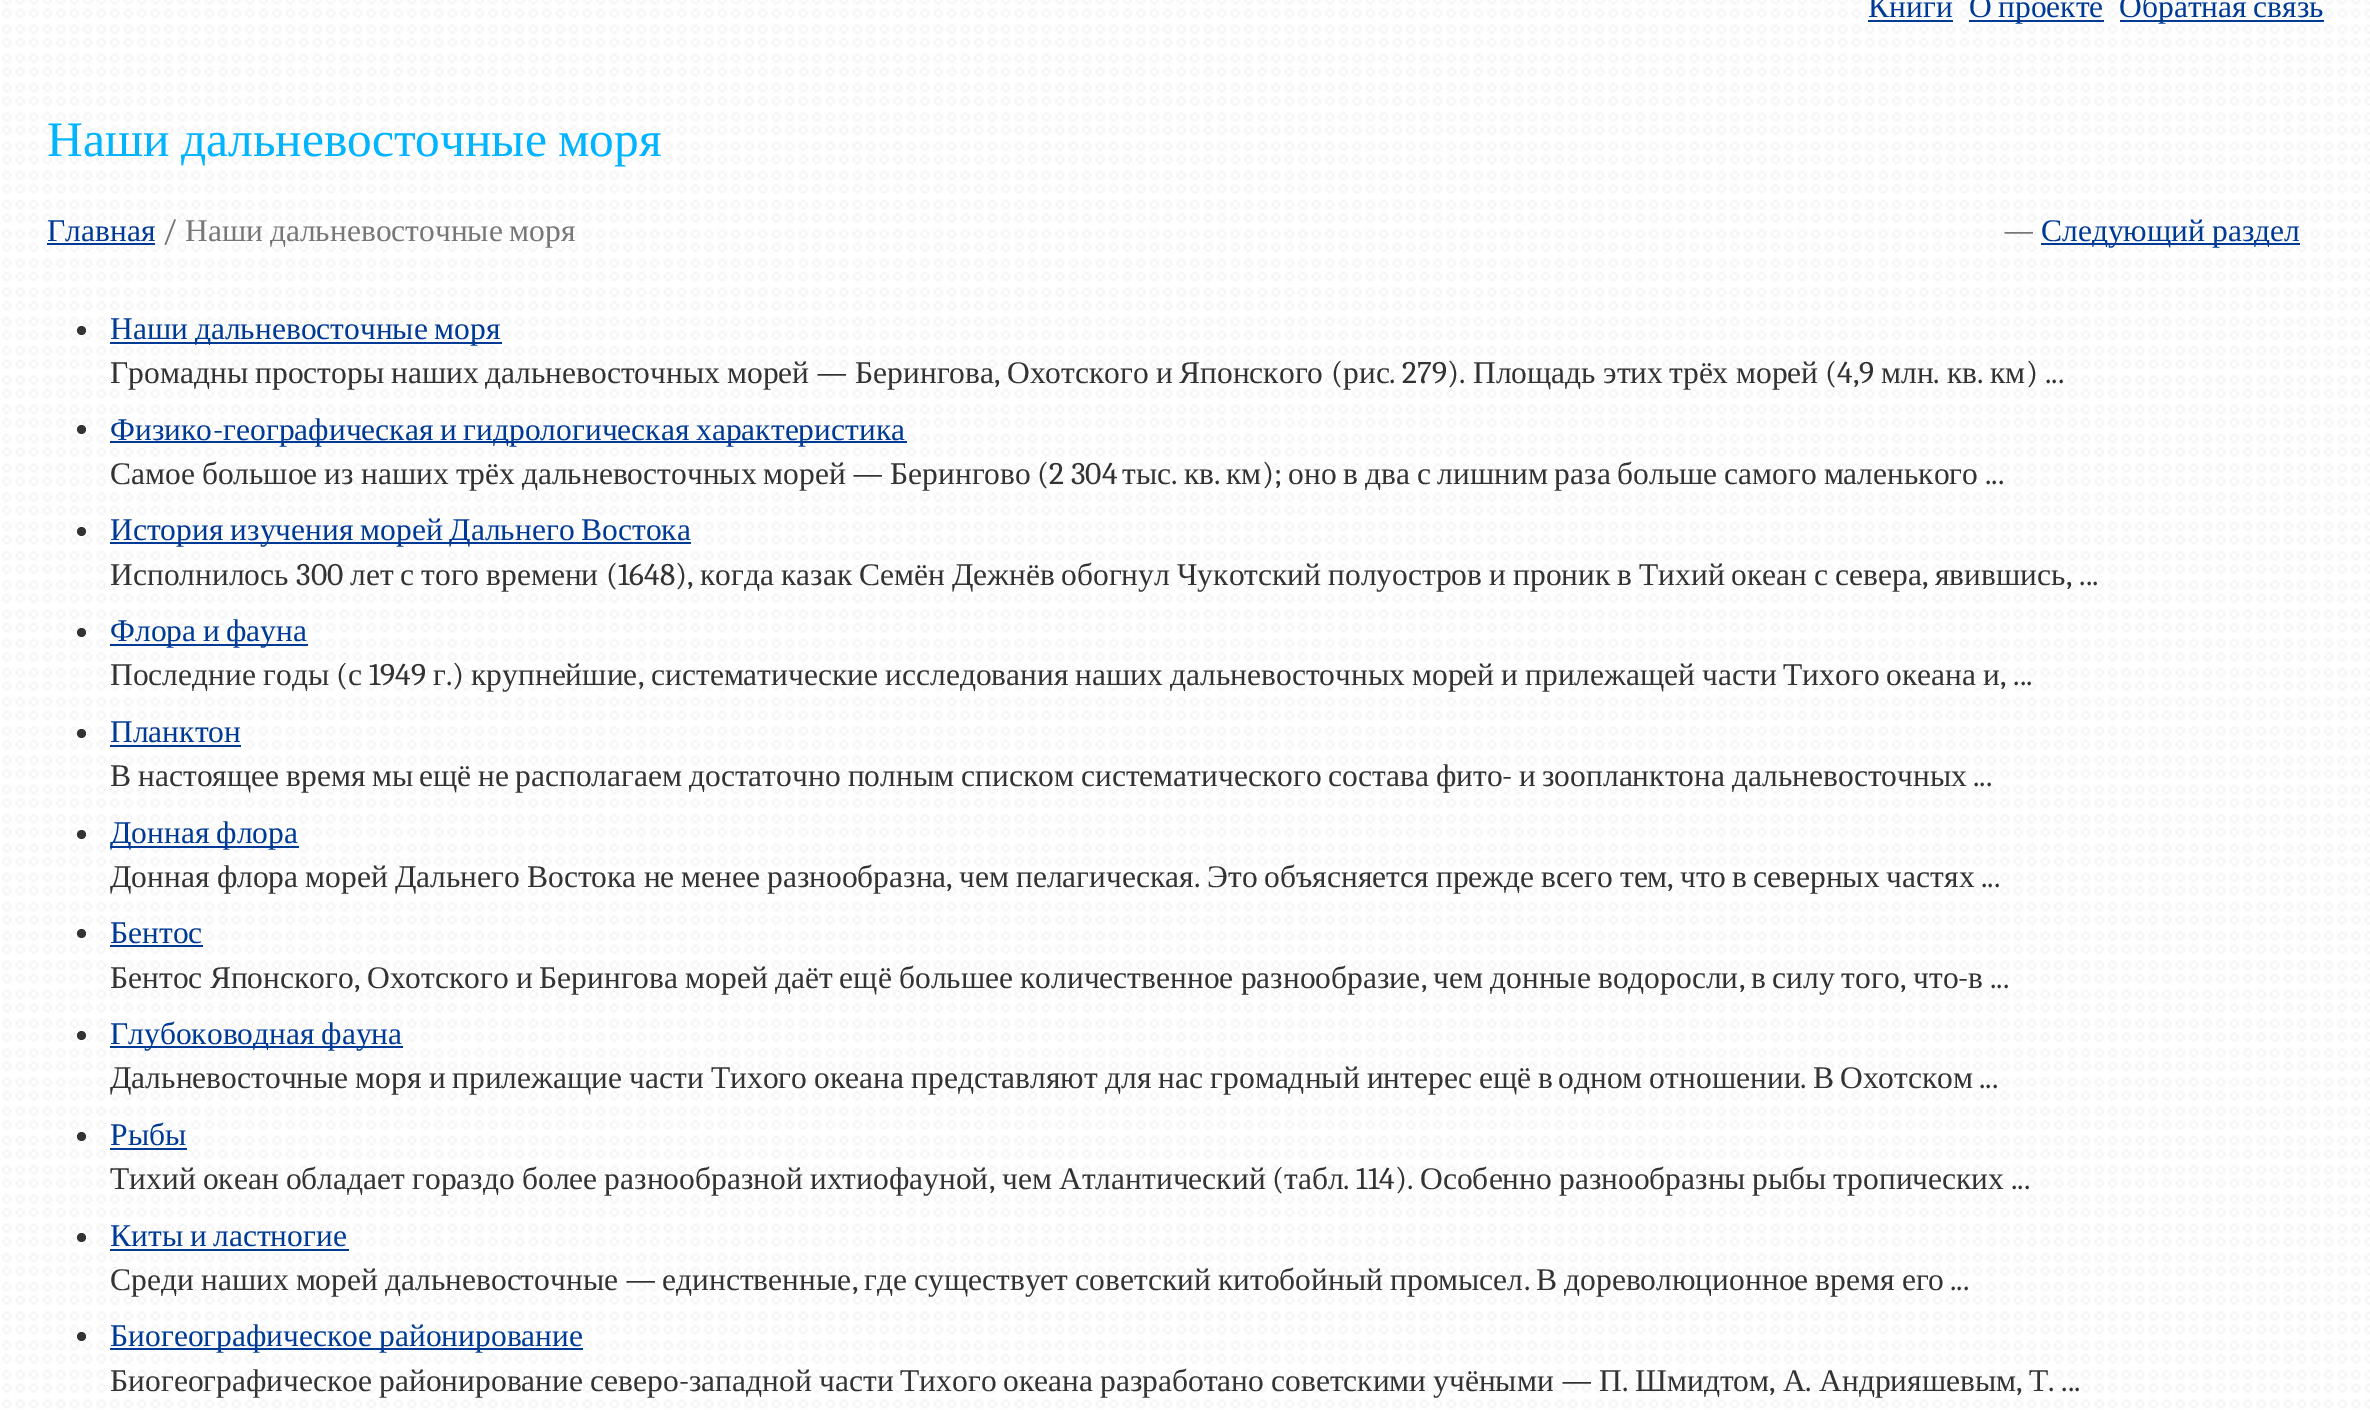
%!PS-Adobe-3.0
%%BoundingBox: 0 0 2370 1410
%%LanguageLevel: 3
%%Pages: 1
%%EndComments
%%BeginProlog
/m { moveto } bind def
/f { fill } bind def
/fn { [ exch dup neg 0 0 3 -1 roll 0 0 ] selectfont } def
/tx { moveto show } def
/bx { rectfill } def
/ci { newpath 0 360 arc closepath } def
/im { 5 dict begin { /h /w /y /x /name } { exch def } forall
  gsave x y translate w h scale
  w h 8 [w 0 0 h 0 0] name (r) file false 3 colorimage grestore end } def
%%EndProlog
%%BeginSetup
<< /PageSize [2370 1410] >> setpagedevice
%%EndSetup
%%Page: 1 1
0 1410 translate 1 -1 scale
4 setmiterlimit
1 setgray
0 0 2370 1410 bx
(image0.raw) 2 0 2368 1409 im
/LiberationSerif-Regular 31.5 fn
0 0.227 0.592 setrgbcolor
(Книги) 1868 17 tx
1868 20 85 2 bx
(О) 1969 17 tx
1969 20 135 2 bx
(проекте) 1998 17 tx
2120 20 204 2 bx
2119 17 m -1 0 32 (Обратная связь) widthshow
/LiberationSerif-Regular 49.5 fn
0 0.706 1 setrgbcolor
47 156 m -1 0 32 (Наши дальневосточные моря) widthshow
/LiberationSerif-Regular 31.5 fn
0 0.227 0.592 setrgbcolor
(Главная) 47 241 tx
47 243 108 2 bx
/Caladea-Regular 31.5 fn
0.467 setgray
(/) 162 241 tx
/LiberationSerif-Regular 31.5 fn
185 241 m -1 0 32 (Наши дальневосточные моря) widthshow
/Caladea-Regular 31.5 fn
(—) 2003 241 tx
0 0.227 0.592 setrgbcolor
2041 243 259 2 bx
/LiberationSerif-Regular 31.5 fn
2041 241 m -1 0 32 (Следующий раздел) widthshow
0.2 setgray
81.5 330.5 4.5 ci f
0 0.227 0.592 setrgbcolor
110 342 392 2 bx
110 339 m -1 0 32 (Наши дальневосточные моря) widthshow
0.2 setgray
(Громадны) 110 383 tx
(просторы) 255 383 tx
(наших) 391 383 tx
(дальневосточных) 485 383 tx
(морей) 727 383 tx
/Caladea-Regular 31.5 fn
(—) 816 383 tx
/LiberationSerif-Regular 31.5 fn
(Берингова) 855 383 tx
(Охотского) 1007 383 tx
(и) 1156 383 tx
(Японского) 1179 383 tx
/Caladea-Regular 31.5 fn
(\() 1331 383 tx
/LiberationSerif-Regular 31.5 fn
(рис) 1343 383 tx
/Caladea-Regular 31.5 fn
(. 279\).) 1389 383 tx
/LiberationSerif-Regular 31.5 fn
(Площадь) 1473 383 tx
(этих) 1603 383 tx
(трёх) 1669 383 tx
(морей) 1736 383 tx
/Caladea-Regular 31.5 fn
(\(4,9) 1825 383 tx
/LiberationSerif-Regular 31.5 fn
(млн) 1881 383 tx
(кв) 1947 383 tx
(км) 1990 383 tx
/Caladea-Regular 31.5 fn
(\) ...) 2026 383 tx
(,) 994 383 tx
(.) 1933 383 tx
(.) 1977 383 tx
81.5 429.5 4.5 ci f
/LiberationSerif-Regular 31.5 fn
0 0.227 0.592 setrgbcolor
(Физико) 110 440 tx
/Caladea-Regular 31.5 fn
(-) 213 440 tx
110 441 797 2 bx
/LiberationSerif-Regular 31.5 fn
223 440 m -1 0 32 (географическая и) widthshow
463 440 m -1 0 32 (гидрологическая характеристика) widthshow
0.2 setgray
110 484 m -1 0 32 (Самое большое из) widthshow
361 484 m -1 0 32 (наших трёх дальневосточных морей) widthshow
/Caladea-Regular 31.5 fn
(—) 852 484 tx
/LiberationSerif-Regular 31.5 fn
(Берингово) 890 484 tx
/Caladea-Regular 31.5 fn
(\(2 304) 1037 484 tx
/LiberationSerif-Regular 31.5 fn
(тыс) 1122 484 tx
(кв) 1184 484 tx
(км) 1226 484 tx
/Caladea-Regular 31.5 fn
(\);) 1262 484 tx
/LiberationSerif-Regular 31.5 fn
1288 484 m -1 0 32 (оно в) widthshow
1365 484 m -1 0 32 (два с) widthshow
1437 484 m -1 0 32 (лишним раза больше самого маленького) widthshow
/Caladea-Regular 31.5 fn
(.) 1171 484 tx
(.) 1214 484 tx
(...) 1985 484 tx
81.5 531.5 4.5 ci f
0 0.227 0.592 setrgbcolor
110 542 581 2 bx
/LiberationSerif-Regular 31.5 fn
110 540 m -1 0 32 (История изучения морей Дальнего Востока) widthshow
0.2 setgray
(Исполнилось) 110 585 tx
/Caladea-Regular 31.5 fn
(300) 296 585 tx
/LiberationSerif-Regular 31.5 fn
(лет) 350 585 tx
(с) 400 585 tx
(того) 421 585 tx
(времени) 486 585 tx
/Caladea-Regular 31.5 fn
(\(1648\),) 606 585 tx
/LiberationSerif-Regular 31.5 fn
(когда) 700 585 tx
(казак) 781 585 tx
(Семён) 859 585 tx
(Дежнёв) 952 585 tx
(обогнул) 1061 585 tx
(Чукотский) 1177 585 tx
(полуостров) 1328 585 tx
(и) 1489 585 tx
(проник) 1513 585 tx
(в) 1617 585 tx
(Тихий) 1639 585 tx
(океан) 1731 585 tx
(с) 1814 585 tx
(севера) 1835 585 tx
/Caladea-Regular 31.5 fn
(,) 1922 585 tx
/LiberationSerif-Regular 31.5 fn
(явившись) 1935 585 tx
/Caladea-Regular 31.5 fn
(, ...) 2066 585 tx
81.5 632.5 4.5 ci f
0 0.227 0.592 setrgbcolor
110 644 198 2 bx
/LiberationSerif-Regular 31.5 fn
110 641 m -1 0 32 (Флора и) widthshow
(фауна) 226 641 tx
0.2 setgray
(Последние) 110 685 tx
(годы) 263 685 tx
/Caladea-Regular 31.5 fn
(\() 336 685 tx
/LiberationSerif-Regular 31.5 fn
(с) 348 685 tx
/Caladea-Regular 31.5 fn
(1949) 369 685 tx
/LiberationSerif-Regular 31.5 fn
(г) 433 685 tx
/Caladea-Regular 31.5 fn
(.\)) 446 685 tx
/LiberationSerif-Regular 31.5 fn
(крупнейшие) 471 685 tx
/Caladea-Regular 31.5 fn
(,) 638 685 tx
/LiberationSerif-Regular 31.5 fn
(систематические) 651 685 tx
(исследования) 885 685 tx
(наших) 1075 685 tx
(дальневосточных) 1170 685 tx
(морей) 1412 685 tx
(и) 1501 685 tx
(прилежащей) 1525 685 tx
(части) 1702 685 tx
(Тихого) 1783 685 tx
(океана) 1886 685 tx
(и) 1983 685 tx
/Caladea-Regular 31.5 fn
(, ...) 2000 685 tx
81.5 733.5 4.5 ci f
/LiberationSerif-Regular 31.5 fn
0 0.227 0.592 setrgbcolor
(Планктон) 110 742 tx
110 745 131 2 bx
0.2 setgray
(В) 110 786 tx
138 786 m -0.75 0 32 (настоящее время мы) widthshow
419 786 m -0.75 0 32 (ещё не) widthshow
515 786 m -0.75 0 32 (располагаем достаточно полным списком систематического состава фито) widthshow
/Caladea-Regular 31.5 fn
(-) 1502 786 tx
/LiberationSerif-Regular 31.5 fn
(и) 1519 786 tx
1542 786 m -0.75 0 32 (зоопланктона дальневосточных) widthshow
/Caladea-Regular 31.5 fn
(...) 1973 786 tx
81.5 834.5 4.5 ci f
0 0.227 0.592 setrgbcolor
110 846 189 2 bx
/LiberationSerif-Regular 31.5 fn
110 843 m -1 0 32 (Донная флора) widthshow
0.2 setgray
110 887 m -0.75 0 32 (Донная флора морей Дальнего Востока не) widthshow
681 887 m -0.75 0 32 (менее разнообразна) widthshow
/Caladea-Regular 31.5 fn
(,) 946 887 tx
/LiberationSerif-Regular 31.5 fn
959 887 m -0.75 0 32 (чем пелагическая) widthshow
/Caladea-Regular 31.5 fn
(.) 1194 887 tx
/LiberationSerif-Regular 31.5 fn
1207 887 m -0.75 0 32 (Это объясняется прежде всего тем) widthshow
/Caladea-Regular 31.5 fn
(,) 1667 887 tx
/LiberationSerif-Regular 31.5 fn
1680 887 m -0.75 0 32 (что в) widthshow
1753 887 m -0.75 0 32 (северных частях) widthshow
/Caladea-Regular 31.5 fn
(...) 1981 887 tx
81.5 933.5 4.5 ci f
/LiberationSerif-Regular 31.5 fn
0 0.227 0.592 setrgbcolor
(Бентос) 110 943 tx
110 945 93 2 bx
0.2 setgray
110 988 m -0.75 0 32 (Бентос Японского) widthshow
367 988 m -0.75 0 32 (Охотского и) widthshow
539 988 m -0.75 0 32 (Берингова морей даёт ещё большее количественное разнообразие) widthshow
1433 988 m -0.75 0 32 (чем донные водоросли) widthshow
(в) 1751 988 tx
1772 988 m -0.75 0 32 (силу того) widthshow
(что) 1913 988 tx
/Caladea-Regular 31.5 fn
(-) 1958 988 tx
/LiberationSerif-Regular 31.5 fn
(в) 1968 988 tx
/Caladea-Regular 31.5 fn
(,) 354 988 tx
(,) 1421 988 tx
(,) 1739 988 tx
(,) 1900 988 tx
(...) 1990 988 tx
81.5 1035.5 4.5 ci f
0 0.227 0.592 setrgbcolor
110 1046 293 2 bx
/LiberationSerif-Regular 31.5 fn
110 1044 m -1 0 32 (Глубоководная фауна) widthshow
0.2 setgray
110 1088 m -0.75 0 32 (Дальневосточные моря и) widthshow
452 1088 m -0.75 0 32 (прилежащие части Тихого океана представляют для нас громадный интерес ещё в) widthshow
1558 1088 m -0.75 0 32 (одном отношении) widthshow
/Caladea-Regular 31.5 fn
(.) 1800 1088 tx
/LiberationSerif-Regular 31.5 fn
(В) 1813 1088 tx
(Охотском) 1840 1088 tx
/Caladea-Regular 31.5 fn
(...) 1979 1088 tx
81.5 1136.5 4.5 ci f
/LiberationSerif-Regular 31.5 fn
0 0.227 0.592 setrgbcolor
(Рыбы) 110 1145 tx
110 1148 77 2 bx
0.2 setgray
110 1189 m -0.75 0 32 (Тихий океан обладает гораздо более разнообразной ихтиофауной) widthshow
/Caladea-Regular 31.5 fn
(,) 989 1189 tx
/LiberationSerif-Regular 31.5 fn
1002 1189 m -0.75 0 32 (чем Атлантический) widthshow
/Caladea-Regular 31.5 fn
(\() 1272 1189 tx
/LiberationSerif-Regular 31.5 fn
(табл) 1284 1189 tx
/Caladea-Regular 31.5 fn
(. 114\).) 1343 1189 tx
/LiberationSerif-Regular 31.5 fn
1420 1189 m -1 0 32 (Особенно разнообразны рыбы тропических) widthshow
/Caladea-Regular 31.5 fn
(...) 2011 1189 tx
81.5 1237.5 4.5 ci f
/LiberationSerif-Regular 31.5 fn
0 0.227 0.592 setrgbcolor
110 1246 m -1 0 32 (Киты и) widthshow
(ластногие) 213 1246 tx
110 1249 239 2 bx
0.2 setgray
110 1290 m -0.75 0 32 (Среди наших морей дальневосточные) widthshow
/Caladea-Regular 31.5 fn
(—) 625 1290 tx
/LiberationSerif-Regular 31.5 fn
(единственные) 662 1290 tx
864 1290 m -0.75 0 32 (где существует советский китобойный промысел) widthshow
(В) 1536 1290 tx
1564 1290 m -0.75 0 32 (дореволюционное время его) widthshow
/Caladea-Regular 31.5 fn
(,) 852 1290 tx
(.) 1524 1290 tx
(...) 1950 1290 tx
81.5 1336.5 4.5 ci f
0 0.227 0.592 setrgbcolor
110 1348 473 2 bx
/LiberationSerif-Regular 31.5 fn
110 1346 m -1 0 32 (Биогеографическое районирование) widthshow
0.2 setgray
(Биогеографическое) 110 1391 tx
(районирование) 379 1391 tx
(северо) 590 1391 tx
/Caladea-Regular 31.5 fn
(-) 679 1391 tx
/LiberationSerif-Regular 31.5 fn
(западной) 689 1391 tx
(части) 819 1391 tx
(Тихого) 900 1391 tx
(океана) 1003 1391 tx
(разработано) 1100 1391 tx
(советскими) 1271 1391 tx
(учёными) 1433 1391 tx
/Caladea-Regular 31.5 fn
(—) 1561 1391 tx
/LiberationSerif-Regular 31.5 fn
(П) 1599 1391 tx
(Шмидтом) 1635 1391 tx
(А) 1783 1391 tx
(Андрияшевым) 1819 1391 tx
(Т) 2029 1391 tx
/Caladea-Regular 31.5 fn
(.) 1622 1391 tx
(,) 1769 1391 tx
(.) 1805 1391 tx
(,) 2016 1391 tx
(. ...) 2048 1391 tx
showpage
%%EOF
